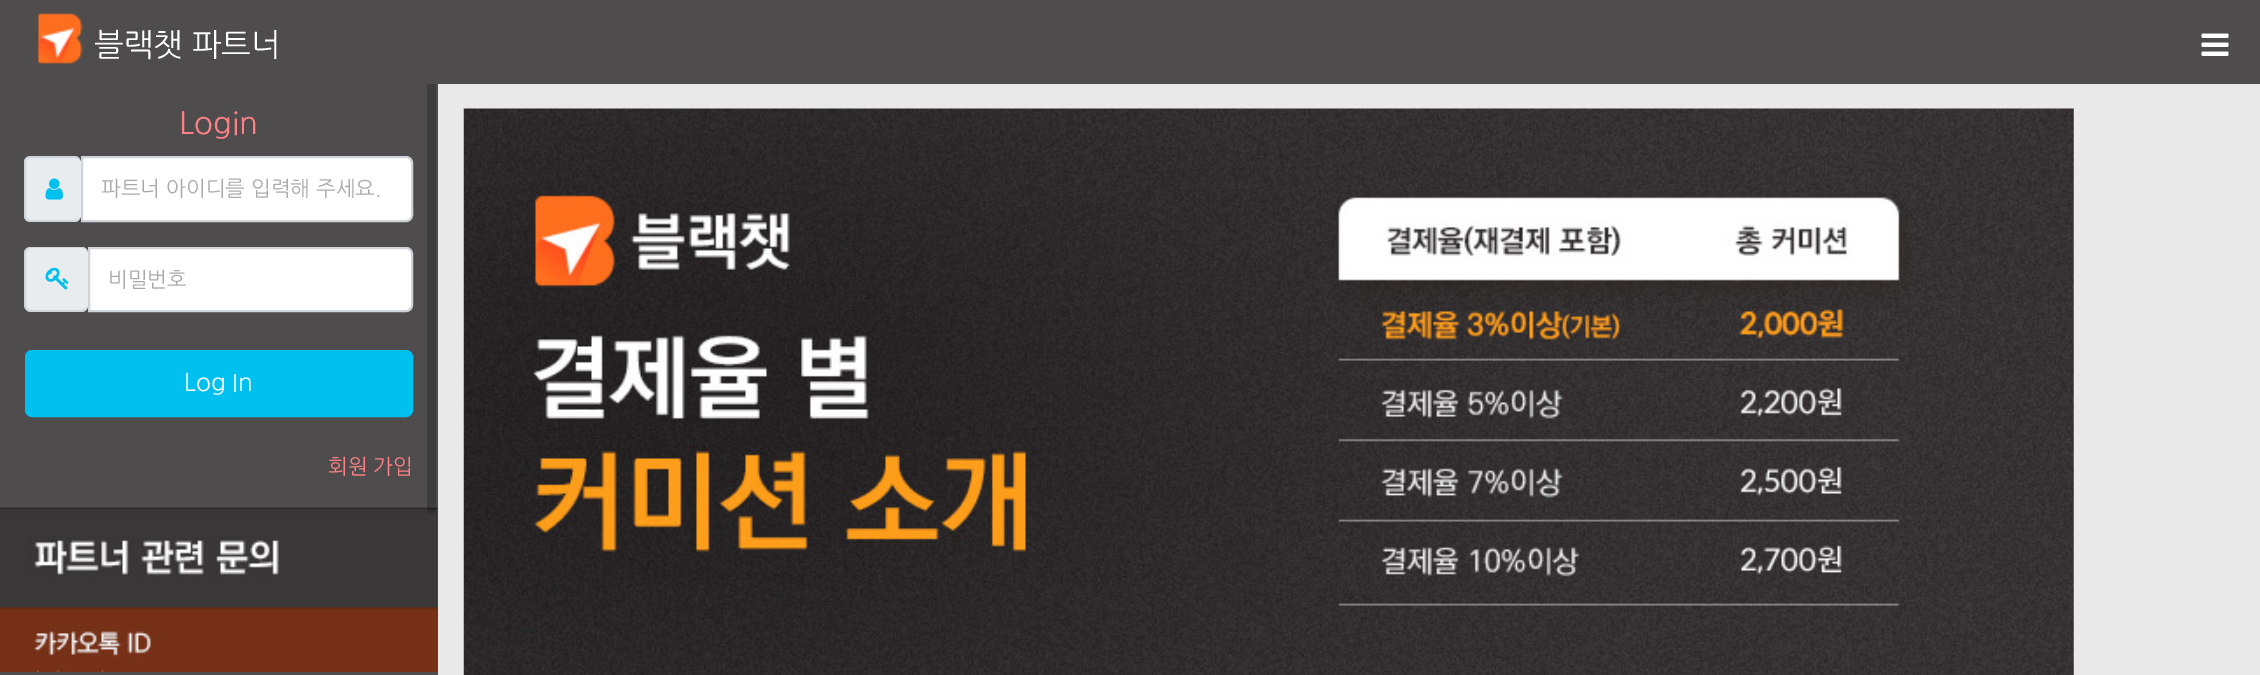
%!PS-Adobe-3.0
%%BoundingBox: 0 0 2260 675
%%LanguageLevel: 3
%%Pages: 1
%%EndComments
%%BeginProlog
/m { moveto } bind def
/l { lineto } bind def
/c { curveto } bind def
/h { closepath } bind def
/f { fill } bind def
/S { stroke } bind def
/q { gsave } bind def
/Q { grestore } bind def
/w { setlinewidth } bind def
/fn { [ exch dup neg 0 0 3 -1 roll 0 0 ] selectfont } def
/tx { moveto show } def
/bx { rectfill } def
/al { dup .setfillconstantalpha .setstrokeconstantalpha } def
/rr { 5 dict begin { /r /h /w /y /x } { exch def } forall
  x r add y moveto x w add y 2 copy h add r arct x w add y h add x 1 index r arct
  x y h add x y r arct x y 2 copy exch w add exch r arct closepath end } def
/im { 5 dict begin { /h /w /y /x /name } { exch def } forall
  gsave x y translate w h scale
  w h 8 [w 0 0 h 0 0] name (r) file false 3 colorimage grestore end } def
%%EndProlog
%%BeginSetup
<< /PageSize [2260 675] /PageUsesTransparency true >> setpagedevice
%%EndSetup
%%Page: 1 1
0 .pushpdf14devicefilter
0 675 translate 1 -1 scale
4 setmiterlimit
0.914 setgray
0 0 2260 675 bx
0.306 0.298 0.298 setrgbcolor
0 84 438 591 bx
(image4.raw) 0 507 438 165 im
0.2 al
0 setgray
427 81 9 432 4.5 rr f
1 al
0.306 0.298 0.298 setrgbcolor
0 0 2260 84 bx
(image0.raw) 36 12 47 53 im
/NanumGothic-Regular 31.5 fn
1 setgray
(블랙챗 파트너) 94 56 tx
(image1.raw) 2201 33 28 23 im
/NanumGothic-Regular 31 fn
1 0.502 0.525 setrgbcolor
(Login) 179 134 tx
0.914 0.925 0.937 setrgbcolor
25 156 56 66 7 rr f
0.808 0.831 0.855 setrgbcolor
31 156 m 74 156 l 78 156 80 158 80 162 c 80 216 l 80 220 78 222 74 222 c 31 222 l 27 222 24 220 24 216 c 24 162 l 24 158 27 156 31 156 c h 31 158 m 74 158 l 78 158 80 159 80 162 c 80 216 l 80 219 78 220 74 220 c 31 220 l 28 220 26 219 26 216 c 26 162 l 26 159 28 158 31 158 c h eofill
(image2.raw) 45 178 18 22 im
1 setgray
82 158 m 407 158 l 409 158 411 160 411 162 c 411 217 l 411 219 409 221 407 221 c 82 221 l h f
0.808 0.831 0.855 setrgbcolor
2 w
82 157 m 406 157 l 409.5 157 412 159.5 412 163 c 412 215 l 412 218.5 409.5 221 406 221 c 82 221 l h S
q
102 177 292 26 rectclip
/NanumGothic-Regular 21 fn
0.667 setgray
(파트너 아이디를 입력해 주세요.) 101 196 tx
Q
0.914 0.925 0.937 setrgbcolor
25 247 63 65 7 rr f
0.808 0.831 0.855 setrgbcolor
31 247 m 81 247 l 85 247 88 249 88 253 c 88 305 l 88 309 85 312 81 312 c 31 312 l 27 312 24 309 24 305 c 24 253 l 24 249 27 247 31 247 c h 31 248 m 81 248 l 85 248 88 250 88 253 c 88 305 l 88 308 85 310 81 310 c 31 310 l 28 310 26 308 26 305 c 26 253 l 26 250 28 248 31 248 c h eofill
(image3.raw) 45 267 24 23 im
1 setgray
89 249 m 407 249 l 409 249 411 251 411 253 c 411 306 l 411 308 409 310 407 310 c 89 310 l h f
0.808 0.831 0.855 setrgbcolor
89 248 m 406 248 l 409.5 248 412 250.5 412 254 c 412 305 l 412 308.5 409.5 311 406 311 c 89 311 l h S
/NanumGothic-Regular 21 fn
0.667 setgray
(비밀번호) 108 287 tx
0 0.753 0.937 setrgbcolor
26 351 386 65 6 rr q f Q
S
/NanumGothic-Regular 24.5 fn
1 setgray
(Log In) 184 391 tx
/NanumGothic-Regular 21 fn
1 0.502 0.525 setrgbcolor
(회원 가입) 328 474 tx
(image5.raw) 463 108 1611 567 im
.poppdf14devicefilter showpage
%%EOF
